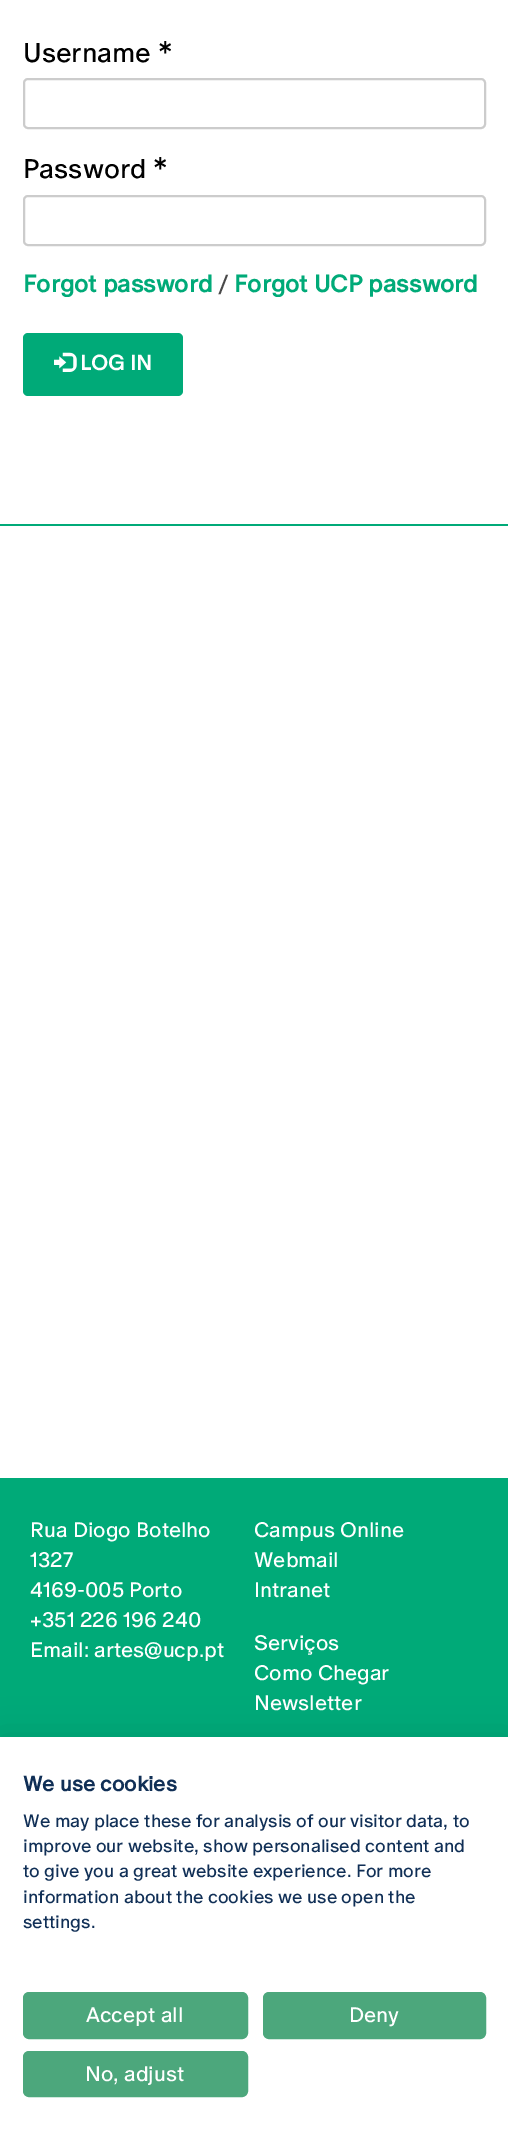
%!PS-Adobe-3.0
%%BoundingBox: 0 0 508 2137
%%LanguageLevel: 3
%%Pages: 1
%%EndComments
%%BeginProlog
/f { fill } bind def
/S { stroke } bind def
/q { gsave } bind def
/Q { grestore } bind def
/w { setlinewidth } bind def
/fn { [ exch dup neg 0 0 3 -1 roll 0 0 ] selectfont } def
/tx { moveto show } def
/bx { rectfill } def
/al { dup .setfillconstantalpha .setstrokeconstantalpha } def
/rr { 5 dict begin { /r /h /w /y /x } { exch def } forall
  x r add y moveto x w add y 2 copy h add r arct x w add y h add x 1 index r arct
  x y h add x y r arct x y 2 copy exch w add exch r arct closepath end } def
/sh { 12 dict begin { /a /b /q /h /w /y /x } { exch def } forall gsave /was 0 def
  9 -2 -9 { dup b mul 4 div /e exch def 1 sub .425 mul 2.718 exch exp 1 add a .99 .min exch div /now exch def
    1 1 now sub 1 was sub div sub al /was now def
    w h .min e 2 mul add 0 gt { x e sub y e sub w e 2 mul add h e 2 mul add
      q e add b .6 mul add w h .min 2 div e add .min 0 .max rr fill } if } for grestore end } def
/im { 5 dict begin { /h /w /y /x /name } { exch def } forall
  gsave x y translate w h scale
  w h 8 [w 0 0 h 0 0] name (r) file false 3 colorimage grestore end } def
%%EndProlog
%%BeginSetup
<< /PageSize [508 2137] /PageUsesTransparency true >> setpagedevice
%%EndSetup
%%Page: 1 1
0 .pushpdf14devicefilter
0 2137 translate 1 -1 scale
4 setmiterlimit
1 setgray
0 0 508 2137 bx
/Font-Regular 27 fn
0 setgray
(Username *) 23 62 tx
0.8 setgray
2 w
24 79 461 49 4 rr S
0 setgray
(Password *) 23 178 tx
0.8 setgray
24 196 461 49 4 rr S
/Font-Bold 24 fn
0 0.667 0.471 setrgbcolor
(Forgot password) 23 292 tx
/Font-Regular 24 fn
0.286 setgray
(/) 218 292 tx
/Font-Bold 24 fn
0 0.667 0.471 setrgbcolor
(Forgot UCP password) 234 292 tx
23 333 160 63 5 rr f
(image0.raw) 54 352 23 20 im
/Font-Bold 21 fn
1 setgray
(LOG IN) 80 370 tx
0 0.667 0.471 setrgbcolor
0 524 508 2 bx
0 1478 508 259 bx
/Font-Regular 21 fn
1 setgray
(Rua Diogo Botelho) 30 1537 tx
(1327) 30 1567 tx
(4169-005 Porto) 30 1597 tx
(+351 226 196 240) 30 1627 tx
(Email: artes@ucp.pt) 30 1657 tx
(Campus Online) 254 1537 tx
(Webmail) 254 1567 tx
(Intranet) 254 1597 tx
(Serviços) 254 1650 tx
(Como Chegar) 254 1680 tx
(Newsletter) 254 1710 tx
0 setgray
0 1737 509 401 0 18 0.1 sh
1 setgray
0 1737 508 400 bx
/Font-Bold 21 fn
0.063 0.184 0.337 setrgbcolor
(We use cookies) 23 1791 tx
/Font-Regular 18 fn
(We may place these for analysis of our visitor data, to) 23 1827 tx
(improve our website, show personalised content and) 23 1852 tx
(to give you a great website experience. For more) 23 1877 tx
(information about the cookies we use open the) 23 1903 tx
(settings.) 23 1928 tx
0.298 0.655 0.486 setrgbcolor
24 1993 223 45 5 rr q f Q
S
/Font-Regular 21 fn
1 setgray
(Accept all) 86 2022 tx
0.298 0.655 0.486 setrgbcolor
264 1993 221 45 5 rr q f Q
S
1 setgray
(Deny) 349 2022 tx
0.298 0.655 0.486 setrgbcolor
24 2052 223 44 5 rr q f Q
S
1 setgray
(No, adjust) 85 2081 tx
.poppdf14devicefilter showpage
%%EOF
